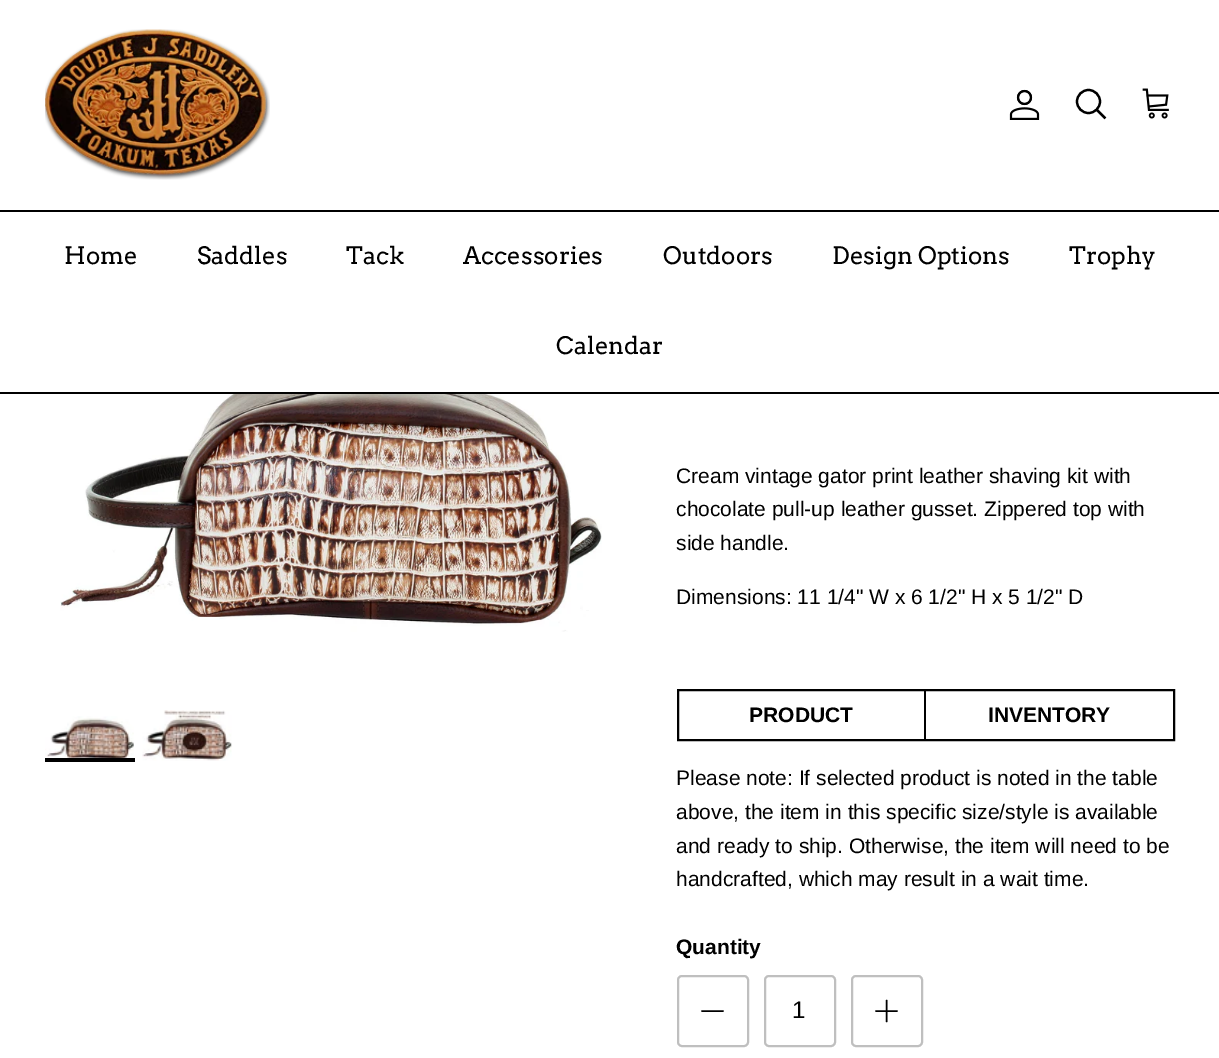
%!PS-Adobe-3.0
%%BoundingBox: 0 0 1219 1058
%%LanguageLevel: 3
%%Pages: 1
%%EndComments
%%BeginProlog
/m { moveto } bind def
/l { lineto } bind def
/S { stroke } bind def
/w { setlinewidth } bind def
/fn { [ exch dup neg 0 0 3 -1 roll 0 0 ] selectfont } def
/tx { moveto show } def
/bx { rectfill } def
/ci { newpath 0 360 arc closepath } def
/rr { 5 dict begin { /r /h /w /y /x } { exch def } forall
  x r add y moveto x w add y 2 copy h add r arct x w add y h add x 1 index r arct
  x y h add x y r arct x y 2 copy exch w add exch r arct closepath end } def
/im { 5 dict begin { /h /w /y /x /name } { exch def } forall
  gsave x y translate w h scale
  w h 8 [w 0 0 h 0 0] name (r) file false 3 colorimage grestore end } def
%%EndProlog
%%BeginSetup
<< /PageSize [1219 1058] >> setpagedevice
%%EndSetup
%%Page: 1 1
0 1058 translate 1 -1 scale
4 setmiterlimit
1 setgray
0 0 1219 1058 bx
0 setgray
0 210 1219 2 bx
(image0.raw) 45 29 225 151 im
(image1.raw) 1009 89 31 31 im
2.2 w
1088.5 101.5 11.5 ci S
2 setlinecap
1098 111 m 1104.5 117.5 l S
(image2.raw) 1142 88 27 31 im
0 392 1219 2 bx
/Arvo-Regular 24 fn
(Home) 64 264 tx
(Saddles) 197 264 tx
(Tack) 346 264 tx
(Accessories) 463 264 tx
(Outdoors) 663 264 tx
(Design Options) 832 264 tx
(Trophy) 1069 264 tx
(Calendar) 556 354 tx
(image3.raw) 60 394 542 238 im
(image4.raw) 45 716 89 42 im
45 758 90 4 bx
(image5.raw) 142 710 90 51 im
/Arimo-Regular 21 fn
(Cream vintage gator print leather shaving kit with) 676 483 tx
(chocolate pull-up leather gusset. Zippered top with) 676 516 tx
(side handle.) 676 550 tx
(Dimensions: 11 1/4" W x 6 1/2" H x 5 1/2" D) 676 604 tx
2 w
0 setlinecap
678 690 496 50 rectstroke
924 690 2 50 bx
/Arimo-Bold 21 fn
(PRODUCT) 749 722 tx
(INVENTORY) 988 722 tx
/Arimo-Regular 21 fn
(Please note: If selected product is noted in the table) 676 785 tx
(above, the item in this specific size/style is available) 676 819 tx
(and ready to ship. Otherwise, the item will need to be) 676 853 tx
(handcrafted, which may result in a wait time.) 676 886 tx
/Arimo-Bold 21 fn
(Quantity) 676 954 tx
0.749 setgray
678 976 70 70 4 rr S
0 setgray
1.5 w
1 setlinecap
1 setlinejoin
702 1011 m 723 1011 l S
0.749 setgray
2 w
0 setlinecap
0 setlinejoin
765 976 70 70 4 rr S
/Arimo-Regular 24 fn
0 setgray
(1) 792 1018 tx
0.749 setgray
852 976 70 70 4 rr S
0 setgray
1.5 w
1 setlinecap
1 setlinejoin
886.5 1000.5 m 886.5 1021.5 l 876 1011 m 897 1011 l S
showpage
%%EOF
